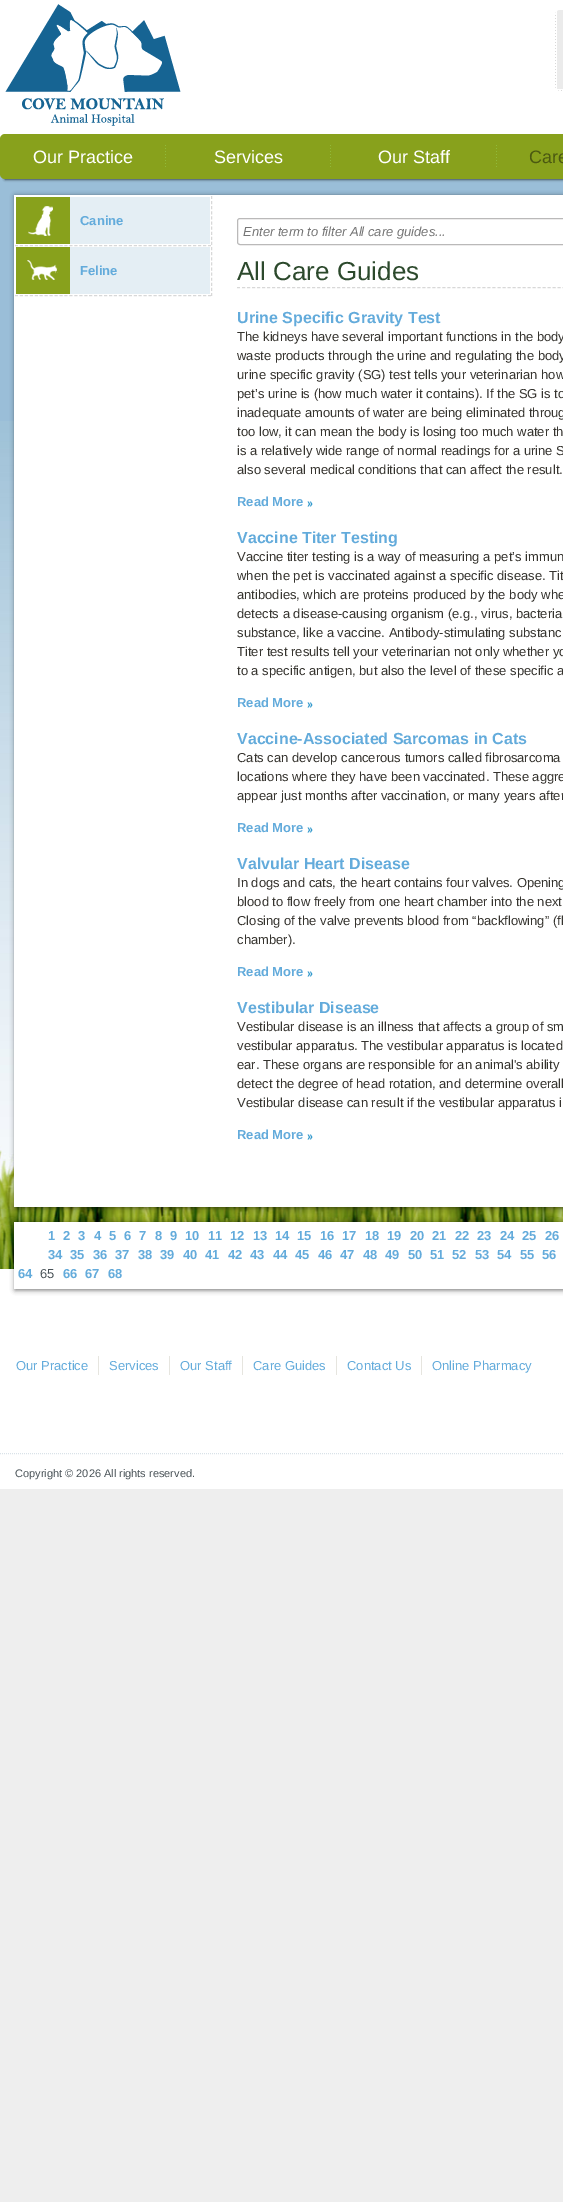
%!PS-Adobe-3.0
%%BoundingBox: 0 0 563 2202
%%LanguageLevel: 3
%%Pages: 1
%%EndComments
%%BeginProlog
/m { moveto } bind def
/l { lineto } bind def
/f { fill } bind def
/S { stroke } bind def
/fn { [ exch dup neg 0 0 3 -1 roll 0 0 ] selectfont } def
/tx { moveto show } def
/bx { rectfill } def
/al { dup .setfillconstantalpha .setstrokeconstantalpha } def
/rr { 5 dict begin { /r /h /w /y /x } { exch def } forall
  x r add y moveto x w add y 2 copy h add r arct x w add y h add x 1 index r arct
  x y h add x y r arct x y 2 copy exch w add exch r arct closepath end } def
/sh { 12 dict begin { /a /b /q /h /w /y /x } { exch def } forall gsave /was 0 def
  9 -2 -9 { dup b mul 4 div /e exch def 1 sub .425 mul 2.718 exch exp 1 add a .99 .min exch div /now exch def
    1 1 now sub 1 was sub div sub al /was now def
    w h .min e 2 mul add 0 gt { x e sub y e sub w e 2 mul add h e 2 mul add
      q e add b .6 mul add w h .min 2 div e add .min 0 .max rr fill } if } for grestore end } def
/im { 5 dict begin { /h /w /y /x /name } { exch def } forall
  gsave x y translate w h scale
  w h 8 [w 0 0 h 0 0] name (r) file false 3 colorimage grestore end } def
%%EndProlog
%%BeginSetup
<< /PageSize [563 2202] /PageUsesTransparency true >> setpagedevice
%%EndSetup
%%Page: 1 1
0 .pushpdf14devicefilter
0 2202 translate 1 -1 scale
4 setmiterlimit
0.933 setgray
0 0 563 2202 bx
0.604 0.745 0.847 setrgbcolor
0 174 563 247 bx
(image0.raw) 0 421 563 1068 im
(image1.raw) 0 0 563 139 im
(image2.raw) 5 4 176 122 im
(image3.raw) 555 10 8 81 im
0 setgray
5 146 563 33 0 1.5 1 sh
0.533 0.631 0.11 setrgbcolor
0 134 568 45 5 rr f
(image4.raw) 165 145 1 22 im
/LiberationSans-Regular 18 fn
1 setgray
(Our Practice) 33 163 tx
(image4.raw) 330 145 1 22 im
(Services) 214 163 tx
(image4.raw) 496 145 1 22 im
(Our Staff) 378 163 tx
0.294 0.349 0.063 setrgbcolor
(Care) 529 163 tx
0 setgray
15 196 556 1012 0 2.5 0.55 sh
1 setgray
14 195 549 1012 bx
0.847 setgray
[3 2.11] 0 setdash
211.5 196 m 211.5 296 l S
[3 1.95] 0 setdash
15 245.5 m 211 245.5 l S
0.894 0.933 0.957 setrgbcolor
70 197 140 47 bx
0.533 0.631 0.11 setrgbcolor
16 197 54 47 bx
(image5.raw) 28 206 25 30 im
/LiberationSans-Bold 13 fn
0.388 0.671 0.859 setrgbcolor
(Canine) 80 225 tx
0.847 setgray
15 295.5 m 211 295.5 l S
0.894 0.933 0.957 setrgbcolor
70 247 140 47 bx
0.533 0.631 0.11 setrgbcolor
16 247 54 47 bx
(image6.raw) 27 260 31 20 im
0.388 0.671 0.859 setrgbcolor
(Feline) 80 275 tx
0.729 0.725 0.725 setrgbcolor
[] 0 setdash
237.5 218.5 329 26 2.5 rr S
/LiberationSans-Italic 13 fn
0.459 setgray
(Enter term to filter All care guides...) 243 236 tx
0.847 setgray
[3 2.01] 0 setdash
237 287.5 m 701 287.5 l S
/LiberationSans-Regular 26 fn
0.173 0.286 0.173 setrgbcolor
(All Care Guides) 237 280 tx
/LiberationSans-Bold 16 fn
0.388 0.671 0.859 setrgbcolor
(Urine Specific Gravity Test) 237 323 tx
/LiberationSans-Regular 13 fn
0.208 0.2 0.18 setrgbcolor
(The kidneys have several important functions in the body) 237 341 tx
(waste products through the urine and regulating the body) 237 360 tx
(urine specific gravity \(SG\) test tells your veterinarian how) 237 379 tx
(pet’s urine is \(how much water it contains\). If the SG is to) 237 398 tx
(inadequate amounts of water are being eliminated throug) 237 417 tx
(too low, it can mean the body is losing too much water th) 237 436 tx
(is a relatively wide range of normal readings for a urine S) 237 455 tx
(also several medical conditions that can affect the result.) 237 474 tx
/LiberationSans-Bold 13 fn
0.388 0.671 0.859 setrgbcolor
(Read More) 237 506 tx
(image7.raw) 307 501 6 6 im
/LiberationSans-Bold 16 fn
(Vaccine Titer Testing) 237 543 tx
/LiberationSans-Regular 13 fn
0.208 0.2 0.18 setrgbcolor
(Vaccine titer testing is a way of measuring a pet’s immun) 237 561 tx
(when the pet is vaccinated against a specific disease. Tit) 237 580 tx
(antibodies, which are proteins produced by the body whe) 237 599 tx
(detects a disease-causing organism \(e.g., virus, bacteria) 237 618 tx
(substance, like a vaccine. Antibody-stimulating substanc) 237 637 tx
(Titer test results tell your veterinarian not only whether yo) 237 656 tx
(to a specific antigen, but also the level of these specific a) 237 675 tx
/LiberationSans-Bold 13 fn
0.388 0.671 0.859 setrgbcolor
(Read More) 237 707 tx
(image7.raw) 307 702 6 6 im
/LiberationSans-Bold 16 fn
(Vaccine-Associated Sarcomas in Cats) 237 744 tx
/LiberationSans-Regular 13 fn
0.208 0.2 0.18 setrgbcolor
(Cats can develop cancerous tumors called fibrosarcoma) 237 762 tx
(locations where they have been vaccinated. These aggre) 237 781 tx
(appear just months after vaccination, or many years after) 237 800 tx
/LiberationSans-Bold 13 fn
0.388 0.671 0.859 setrgbcolor
(Read More) 237 832 tx
(image7.raw) 307 827 6 6 im
/LiberationSans-Bold 16 fn
(Valvular Heart Disease) 237 869 tx
/LiberationSans-Regular 13 fn
0.208 0.2 0.18 setrgbcolor
(In dogs and cats, the heart contains four valves. Opening) 237 887 tx
(blood to flow freely from one heart chamber into the next) 237 906 tx
(Closing of the valve prevents blood from “backflowing” \(fl) 237 925 tx
(chamber\).) 237 944 tx
/LiberationSans-Bold 13 fn
0.388 0.671 0.859 setrgbcolor
(Read More) 237 976 tx
(image7.raw) 307 971 6 6 im
/LiberationSans-Bold 16 fn
(Vestibular Disease) 237 1013 tx
/LiberationSans-Regular 13 fn
0.208 0.2 0.18 setrgbcolor
(Vestibular disease is an illness that affects a group of sm) 237 1031 tx
(vestibular apparatus. The vestibular apparatus is located) 237 1050 tx
(ear. These organs are responsible for an animal's ability) 237 1069 tx
(detect the degree of head rotation, and determine overall) 237 1088 tx
(Vestibular disease can result if the vestibular apparatus i) 237 1107 tx
/LiberationSans-Bold 13 fn
0.388 0.671 0.859 setrgbcolor
(Read More) 237 1139 tx
(image7.raw) 307 1134 6 6 im
0 setgray
15 1223 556 67 0 2.5 0.55 sh
1 setgray
14 1222 549 67 bx
0.388 0.671 0.859 setrgbcolor
(1) 48 1240 tx
(2) 63 1240 tx
(3) 78 1240 tx
(4) 94 1240 tx
(5) 109 1240 tx
(6) 124 1240 tx
(7) 139 1240 tx
(8) 155 1240 tx
(9) 170 1240 tx
(10) 185 1240 tx
(11) 208 1240 tx
(12) 230 1240 tx
(13) 253 1240 tx
(14) 275 1240 tx
(15) 297 1240 tx
(16) 320 1240 tx
(17) 342 1240 tx
(18) 365 1240 tx
(19) 387 1240 tx
(20) 410 1240 tx
(21) 432 1240 tx
(22) 455 1240 tx
(23) 477 1240 tx
(24) 500 1240 tx
(25) 522 1240 tx
(26) 545 1240 tx
(34) 48 1259 tx
(35) 70 1259 tx
(36) 93 1259 tx
(37) 115 1259 tx
(38) 138 1259 tx
(39) 160 1259 tx
(40) 183 1259 tx
(41) 205 1259 tx
(42) 228 1259 tx
(43) 250 1259 tx
(44) 273 1259 tx
(45) 295 1259 tx
(46) 318 1259 tx
(47) 340 1259 tx
(48) 363 1259 tx
(49) 385 1259 tx
(50) 408 1259 tx
(51) 430 1259 tx
(52) 452 1259 tx
(53) 475 1259 tx
(54) 497 1259 tx
(55) 520 1259 tx
(56) 542 1259 tx
(64) 18 1278 tx
/LiberationSans-Regular 13 fn
0.286 0.322 0.341 setrgbcolor
(65) 40 1278 tx
/LiberationSans-Bold 13 fn
0.388 0.671 0.859 setrgbcolor
(66) 63 1278 tx
(67) 85 1278 tx
(68) 108 1278 tx
/LiberationSans-Regular 13 fn
(Our Practice) 16 1370 tx
0.902 0.898 0.875 setrgbcolor
98 1356 1 19 bx
0.388 0.671 0.859 setrgbcolor
(Services) 109 1370 tx
0.902 0.898 0.875 setrgbcolor
169 1356 1 19 bx
0.388 0.671 0.859 setrgbcolor
(Our Staff) 180 1370 tx
0.902 0.898 0.875 setrgbcolor
242 1356 1 19 bx
0.388 0.671 0.859 setrgbcolor
(Care Guides) 253 1370 tx
0.902 0.898 0.875 setrgbcolor
336 1356 1 19 bx
0.388 0.671 0.859 setrgbcolor
(Contact Us) 347 1370 tx
0.902 0.898 0.875 setrgbcolor
421 1356 1 19 bx
0.388 0.671 0.859 setrgbcolor
(Online Pharmacy) 432 1370 tx
0.851 0.886 0.91 setrgbcolor
[1 1] 0 setdash
0 1453.5 m 563 1453.5 l S
/LiberationSans-Regular 11 fn
0.286 0.322 0.341 setrgbcolor
(Copyright © 2026 All rights reserved.) 15 1477 tx
.poppdf14devicefilter showpage
%%EOF
